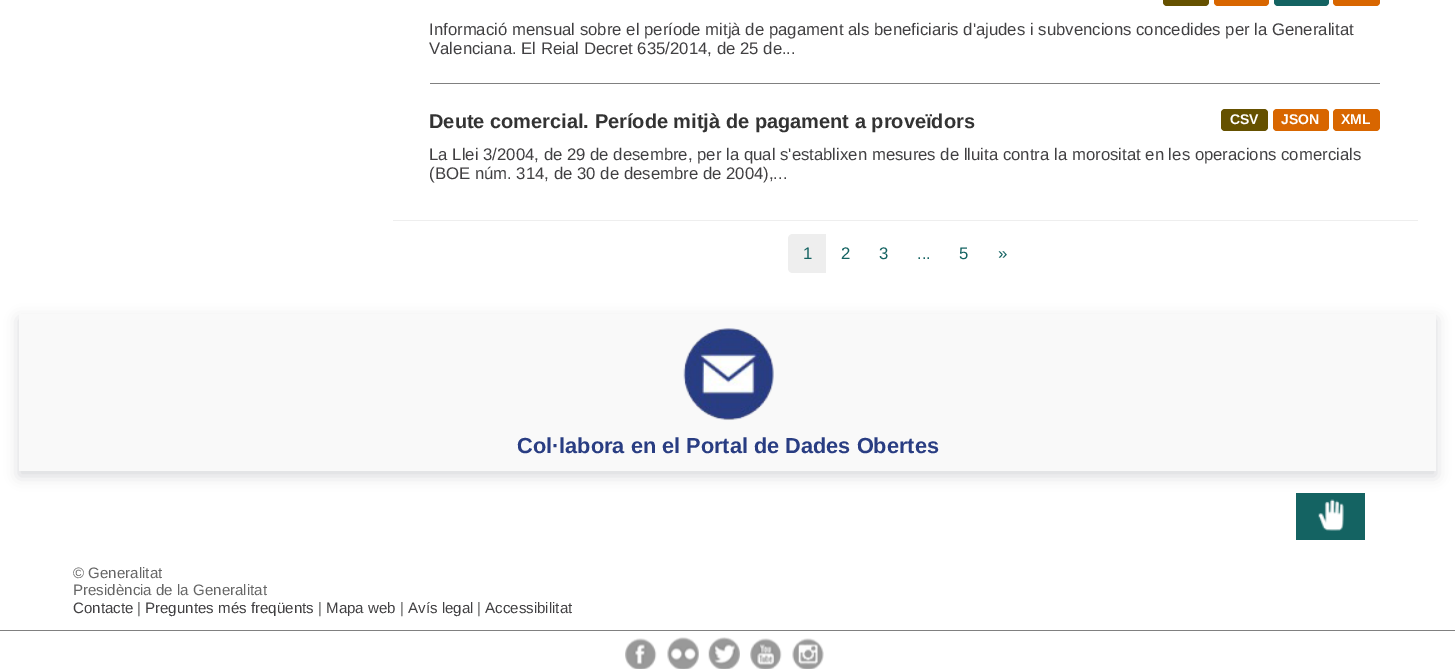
%!PS-Adobe-3.0
%%BoundingBox: 0 0 1455 669
%%LanguageLevel: 3
%%Pages: 1
%%EndComments
%%BeginProlog
/m { moveto } bind def
/l { lineto } bind def
/c { curveto } bind def
/h { closepath } bind def
/f { fill } bind def
/fn { [ exch dup neg 0 0 3 -1 roll 0 0 ] selectfont } def
/tx { moveto show } def
/bx { rectfill } def
/al { dup .setfillconstantalpha .setstrokeconstantalpha } def
/rr { 5 dict begin { /r /h /w /y /x } { exch def } forall
  x r add y moveto x w add y 2 copy h add r arct x w add y h add x 1 index r arct
  x y h add x y r arct x y 2 copy exch w add exch r arct closepath end } def
/sh { 12 dict begin { /a /b /q /h /w /y /x } { exch def } forall gsave /was 0 def
  9 -2 -9 { dup b mul 4 div /e exch def 1 sub .425 mul 2.718 exch exp 1 add a .99 .min exch div /now exch def
    1 1 now sub 1 was sub div sub al /was now def
    w h .min e 2 mul add 0 gt { x e sub y e sub w e 2 mul add h e 2 mul add
      q e add b .6 mul add w h .min 2 div e add .min 0 .max rr fill } if } for grestore end } def
/im { 5 dict begin { /h /w /y /x /name } { exch def } forall
  gsave x y translate w h scale
  w h 8 [w 0 0 h 0 0] name (r) file false 3 colorimage grestore end } def
%%EndProlog
%%BeginSetup
<< /PageSize [1455 669] /PageUsesTransparency true >> setpagedevice
%%EndSetup
%%Page: 1 1
0 .pushpdf14devicefilter
0 669 translate 1 -1 scale
4 setmiterlimit
1 setgray
0 0 1455 669 bx
0.502 setgray
430 83 950 1 bx
0.396 0.318 0 setrgbcolor
1163 -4 46 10 4 rr f
0.847 0.4 0 setrgbcolor
1214 -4 55 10 4 rr f
0.078 0.388 0.384 setrgbcolor
1274 -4 55 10 4 rr f
0.847 0.4 0 setrgbcolor
1333 -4 47 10 4 rr f
/LiberationSans-Regular 16.75 fn
0.255 0.251 0.259 setrgbcolor
(Informació mensual sobre el període mitjà de pagament als beneficiaris d'ajudes i subvencions concedides per la Generalitat) 429 35 tx
(Valenciana. El Reial Decret 635/2014, de 25 de...) 429 54 tx
/LiberationSans-Bold 20 fn
0.2 setgray
(Deute comercial. Període mitjà de pagament a proveïdors) 429 128 tx
0.396 0.318 0 setrgbcolor
1221 109 47 22 4 rr f
/LiberationSans-Bold 14 fn
1 setgray
(CSV) 1230 124 tx
0.847 0.4 0 setrgbcolor
1273 109 56 22 4 rr f
1 setgray
(JSON) 1281 124 tx
0.847 0.4 0 setrgbcolor
1333 109 47 22 4 rr f
1 setgray
(XML) 1341 124 tx
/LiberationSans-Regular 16.75 fn
0.255 0.251 0.259 setrgbcolor
(La Llei 3/2004, de 29 de desembre, per la qual s'establixen mesures de lluita contra la morositat en les operacions comercials) 429 160 tx
(\(BOE núm. 314, de 30 de desembre de 2004\),...) 429 179 tx
0.933 setgray
393 220 1025 1 bx
793 234 m 826 234 l 826 273 l 793 273 l 790 273 788 271 788 268 c 788 239 l 788 236 790 234 793 234 c h f
0.078 0.388 0.384 setrgbcolor
(1) 803 259 tx
(2) 841 259 tx
(3) 879 259 tx
(...) 917 259 tx
(5) 959 259 tx
(») 998 259 tx
0.161 0.176 0.216 setrgbcolor
19 319 1417 157 0 7 0.18 sh
0.976 setgray
19 314 1417 157 bx
(image0.raw) 683 328 91 93 im
/LiberationSans-Bold 21.75 fn
0.161 0.239 0.51 setrgbcolor
(Col·labora en el Portal de Dades Obertes) 517 453 tx
0.078 0.388 0.384 setrgbcolor
1296 493 69 47 bx
(image1.raw) 1318 499 26 32 im
/LiberationSans-Regular 15.1 fn
0.4 setgray
(© Generalitat) 73 578 tx
(Presidència de la Generalitat) 73 595 tx
0.255 0.251 0.259 setrgbcolor
(Contacte) 73 613 tx
0.4 setgray
(|) 137 613 tx
0.255 0.251 0.259 setrgbcolor
(Preguntes més freqüents) 145 613 tx
0.4 setgray
(|) 318 613 tx
0.255 0.251 0.259 setrgbcolor
(Mapa web) 326 613 tx
0.4 setgray
(|) 400 613 tx
0.255 0.251 0.259 setrgbcolor
(Avís legal) 408 613 tx
0.4 setgray
(|) 477 613 tx
0.255 0.251 0.259 setrgbcolor
(Accessibilitat) 485 613 tx
0.502 setgray
0 630 1455 1 bx
(image2.raw) 625 638 32 31 im
(image3.raw) 667 637 32 32 im
(image4.raw) 708 637 32 32 im
(image5.raw) 750 638 32 31 im
(image6.raw) 792 638 32 31 im
.poppdf14devicefilter showpage
%%EOF
